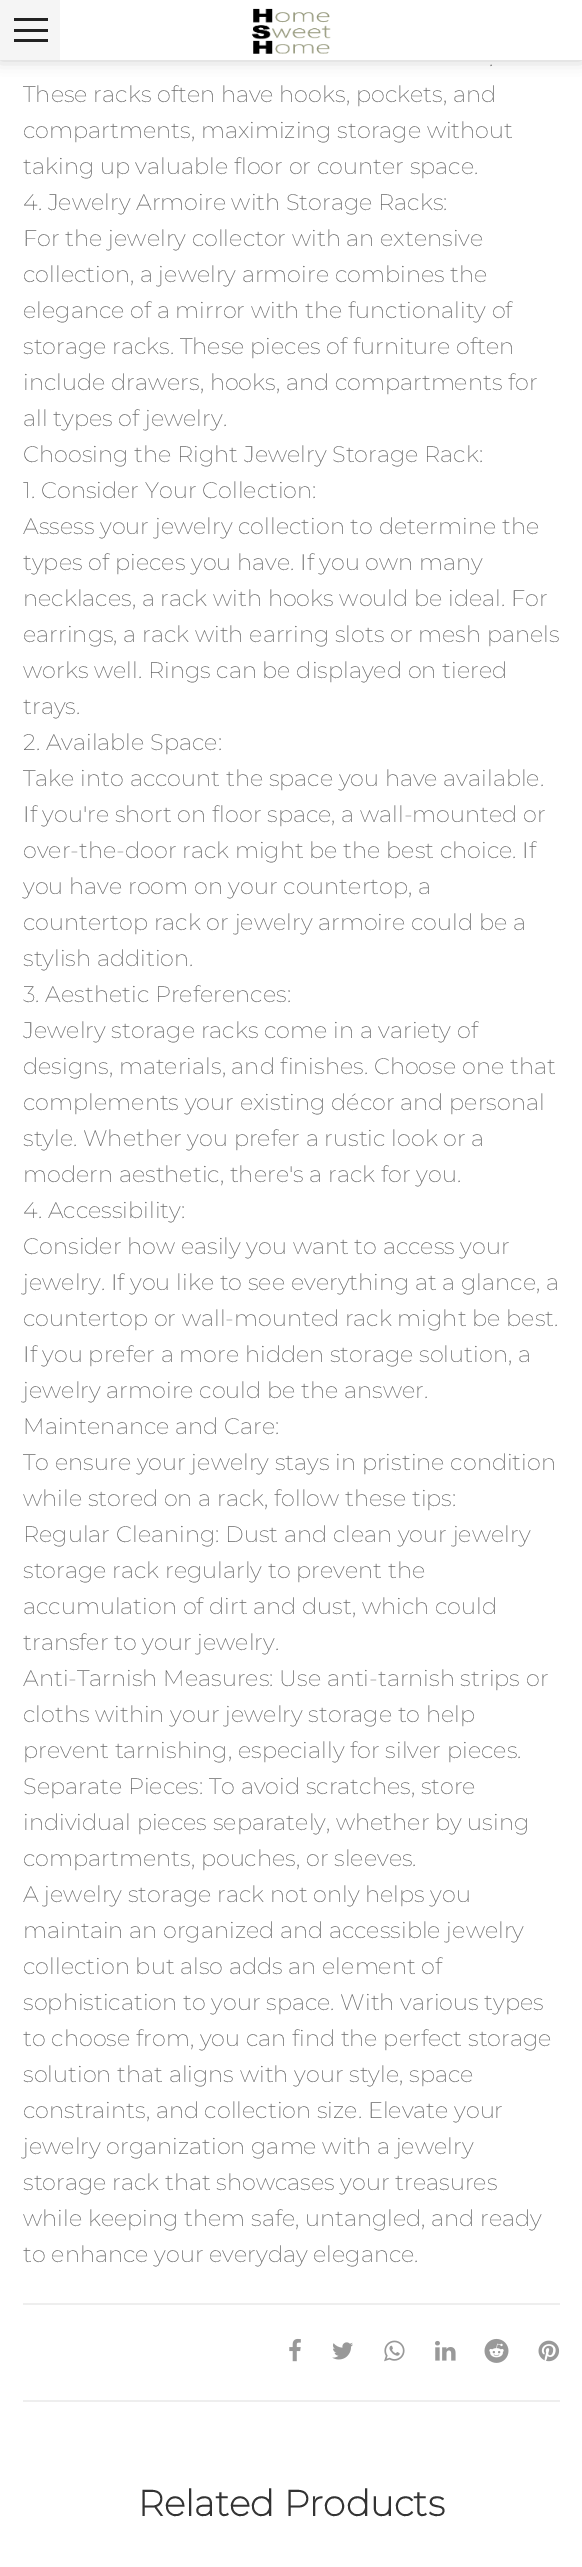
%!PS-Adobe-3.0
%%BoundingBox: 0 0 582 2567
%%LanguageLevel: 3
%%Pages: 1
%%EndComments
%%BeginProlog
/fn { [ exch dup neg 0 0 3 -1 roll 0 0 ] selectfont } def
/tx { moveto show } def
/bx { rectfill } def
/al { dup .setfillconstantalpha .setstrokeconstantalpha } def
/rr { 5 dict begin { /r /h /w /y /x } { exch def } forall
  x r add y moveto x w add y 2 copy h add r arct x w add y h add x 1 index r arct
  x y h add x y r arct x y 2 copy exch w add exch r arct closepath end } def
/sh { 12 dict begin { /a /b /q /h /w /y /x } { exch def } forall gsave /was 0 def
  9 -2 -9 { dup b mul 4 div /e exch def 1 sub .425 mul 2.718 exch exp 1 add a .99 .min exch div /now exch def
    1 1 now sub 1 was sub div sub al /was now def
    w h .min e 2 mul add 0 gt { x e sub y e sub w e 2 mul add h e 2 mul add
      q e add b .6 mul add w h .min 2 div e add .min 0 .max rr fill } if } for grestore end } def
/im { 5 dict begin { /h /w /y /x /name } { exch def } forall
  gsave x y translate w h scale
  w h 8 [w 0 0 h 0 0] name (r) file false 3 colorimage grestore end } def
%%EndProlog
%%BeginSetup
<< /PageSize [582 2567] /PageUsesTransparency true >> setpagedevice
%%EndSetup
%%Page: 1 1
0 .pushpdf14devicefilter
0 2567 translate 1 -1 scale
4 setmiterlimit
1 setgray
0 0 582 2567 bx
0 setgray
0 0 582 60 0 7.5 0.2 sh
1 setgray
60 0 522 60 bx
(image0.raw) 251 8 80 46 im
0.961 setgray
0 0 60 60 bx
0.133 setgray
14 18 34 3 bx
14 29 34 3 bx
14 39 34 3 bx
0.933 setgray
23 2400 537 2 bx
23 2303 537 2 bx
/Montserrat-ExtraLight 22.5 fn
0.4 setgray
(.) 489 66 tx
(These racks often have hooks, pockets, and) 23 102 tx
(compartments, maximizing storage without) 23 138 tx
(taking up valuable floor or counter space.) 23 174 tx
(4. Jewelry Armoire with Storage Racks:) 23 210 tx
(For the jewelry collector with an extensive) 23 246 tx
(collection, a jewelry armoire combines the) 23 282 tx
(elegance of a mirror with the functionality of) 23 318 tx
(storage racks. These pieces of furniture often) 23 354 tx
(include drawers, hooks, and compartments for) 23 390 tx
(all types of jewelry.) 23 426 tx
(Choosing the Right Jewelry Storage Rack:) 23 462 tx
(1. Consider Your Collection:) 23 498 tx
(Assess your jewelry collection to determine the) 23 534 tx
(types of pieces you have. If you own many) 23 570 tx
(necklaces, a rack with hooks would be ideal. For) 23 606 tx
(earrings, a rack with earring slots or mesh panels) 23 642 tx
(works well. Rings can be displayed on tiered) 23 678 tx
(trays.) 23 714 tx
(2. Available Space:) 23 750 tx
(Take into account the space you have available.) 23 786 tx
(If you're short on floor space, a wall-mounted or) 23 822 tx
(over-the-door rack might be the best choice. If) 23 858 tx
(you have room on your countertop, a) 23 894 tx
(countertop rack or jewelry armoire could be a) 23 930 tx
(stylish addition.) 23 966 tx
(3. Aesthetic Preferences:) 23 1002 tx
(Jewelry storage racks come in a variety of) 23 1038 tx
(designs, materials, and finishes. Choose one that) 23 1074 tx
(complements your existing décor and personal) 23 1110 tx
(style. Whether you prefer a rustic look or a) 23 1146 tx
(modern aesthetic, there's a rack for you.) 23 1182 tx
(4. Accessibility:) 23 1218 tx
(Consider how easily you want to access your) 23 1254 tx
(jewelry. If you like to see everything at a glance, a) 23 1290 tx
(countertop or wall-mounted rack might be best.) 23 1326 tx
(If you prefer a more hidden storage solution, a) 23 1362 tx
(jewelry armoire could be the answer.) 23 1398 tx
(Maintenance and Care:) 23 1434 tx
(To ensure your jewelry stays in pristine condition) 23 1470 tx
(while stored on a rack, follow these tips:) 23 1506 tx
(Regular Cleaning: Dust and clean your jewelry) 23 1542 tx
(storage rack regularly to prevent the) 23 1578 tx
(accumulation of dirt and dust, which could) 23 1614 tx
(transfer to your jewelry.) 23 1650 tx
(Anti-Tarnish Measures: Use anti-tarnish strips or) 23 1686 tx
(cloths within your jewelry storage to help) 23 1722 tx
(prevent tarnishing, especially for silver pieces.) 23 1758 tx
(Separate Pieces: To avoid scratches, store) 23 1794 tx
(individual pieces separately, whether by using) 23 1830 tx
(compartments, pouches, or sleeves.) 23 1866 tx
(A jewelry storage rack not only helps you) 23 1902 tx
(maintain an organized and accessible jewelry) 23 1938 tx
(collection but also adds an element of) 23 1974 tx
(sophistication to your space. With various types) 23 2010 tx
(to choose from, you can find the perfect storage) 23 2046 tx
(solution that aligns with your style, space) 23 2082 tx
(constraints, and collection size. Elevate your) 23 2118 tx
(jewelry organization game with a jewelry) 23 2154 tx
(storage rack that showcases your treasures) 23 2190 tx
(while keeping them safe, untangled, and ready) 23 2226 tx
(to enhance your everyday elegance.) 23 2262 tx
(image1.raw) 289 2338 12 24 im
(image2.raw) 332 2342 21 18 im
(image3.raw) 384 2340 21 22 im
(image4.raw) 435 2340 21 21 im
(image5.raw) 484 2338 25 25 im
(image6.raw) 538 2340 22 22 im
/Montserrat-Bold 36 fn
0.2 setgray
(Related Products) 138 2516 tx
.poppdf14devicefilter showpage
%%EOF
